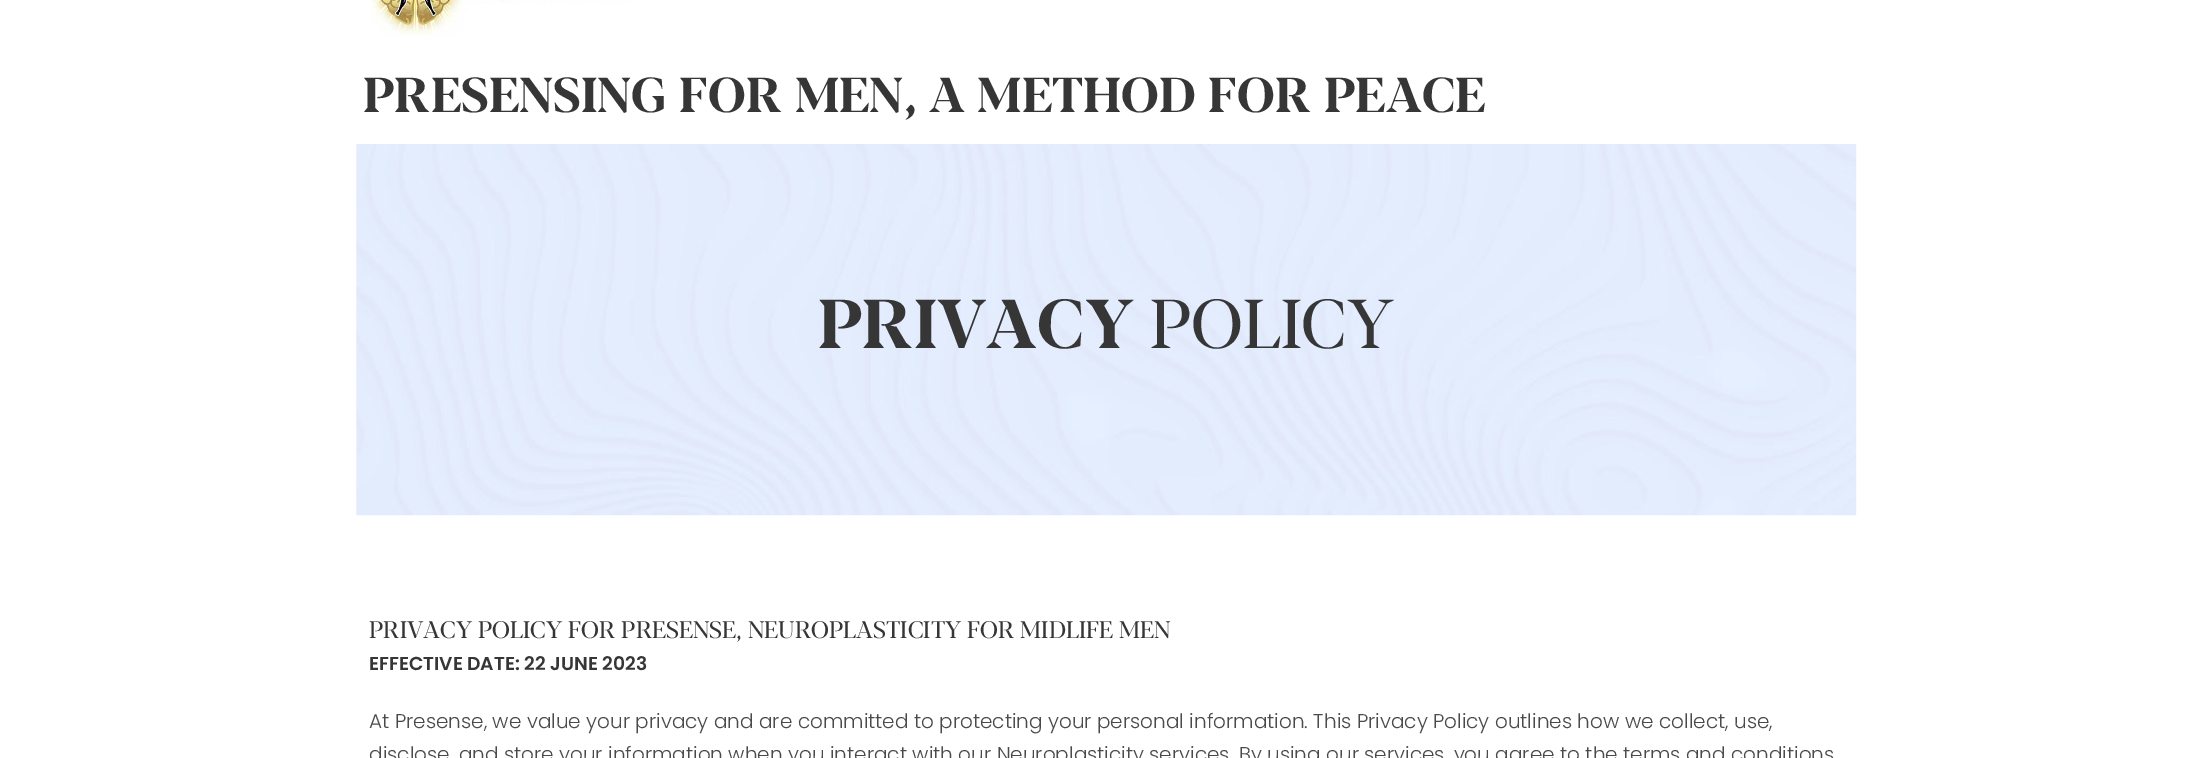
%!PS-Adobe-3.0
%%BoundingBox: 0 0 2212 758
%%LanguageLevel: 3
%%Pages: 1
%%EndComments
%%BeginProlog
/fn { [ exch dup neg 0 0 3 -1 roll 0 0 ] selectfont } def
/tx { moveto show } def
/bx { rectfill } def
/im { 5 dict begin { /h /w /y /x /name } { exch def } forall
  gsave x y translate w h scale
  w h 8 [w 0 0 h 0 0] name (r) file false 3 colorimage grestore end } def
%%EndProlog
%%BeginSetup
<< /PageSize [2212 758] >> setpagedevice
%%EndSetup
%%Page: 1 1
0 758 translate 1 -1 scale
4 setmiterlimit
1 setgray
0 0 2212 758 bx
(image0.raw) 371 0 259 36 im
/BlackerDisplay-Bold 48.75 fn
0.212 setgray
(PRESENSING FOR MEN, A METHOD FOR PEACE) 363 112 tx
(image1.raw) 356 144 1501 372 im
/BlackerDisplay-Bold 68.75 fn
(PRIVACY) 818 348 tx
/BlackerDisplay-Black 68.75 fn
(POLICY) 1150 348 tx
/BlackerDisplay-Black 23.75 fn
(PRIVACY POLICY FOR PRESENSE, NEUROPLASTICITY FOR MIDLIFE MEN) 369 638 tx
/Poppins-SemiBold 18.75 fn
(EFFECTIVE DATE: 22 JUNE 2023) 369 670 tx
/Poppins-Light 20 fn
0.29 setgray
(At Presense, we value your privacy and are committed to protecting your personal information. This Privacy Policy outlines how we collect, use,) 369 728 tx
(disclose, and store your information when you interact with our Neuroplasticity services. By using our services, you agree to the terms and conditions) 369 761 tx
showpage
%%EOF
